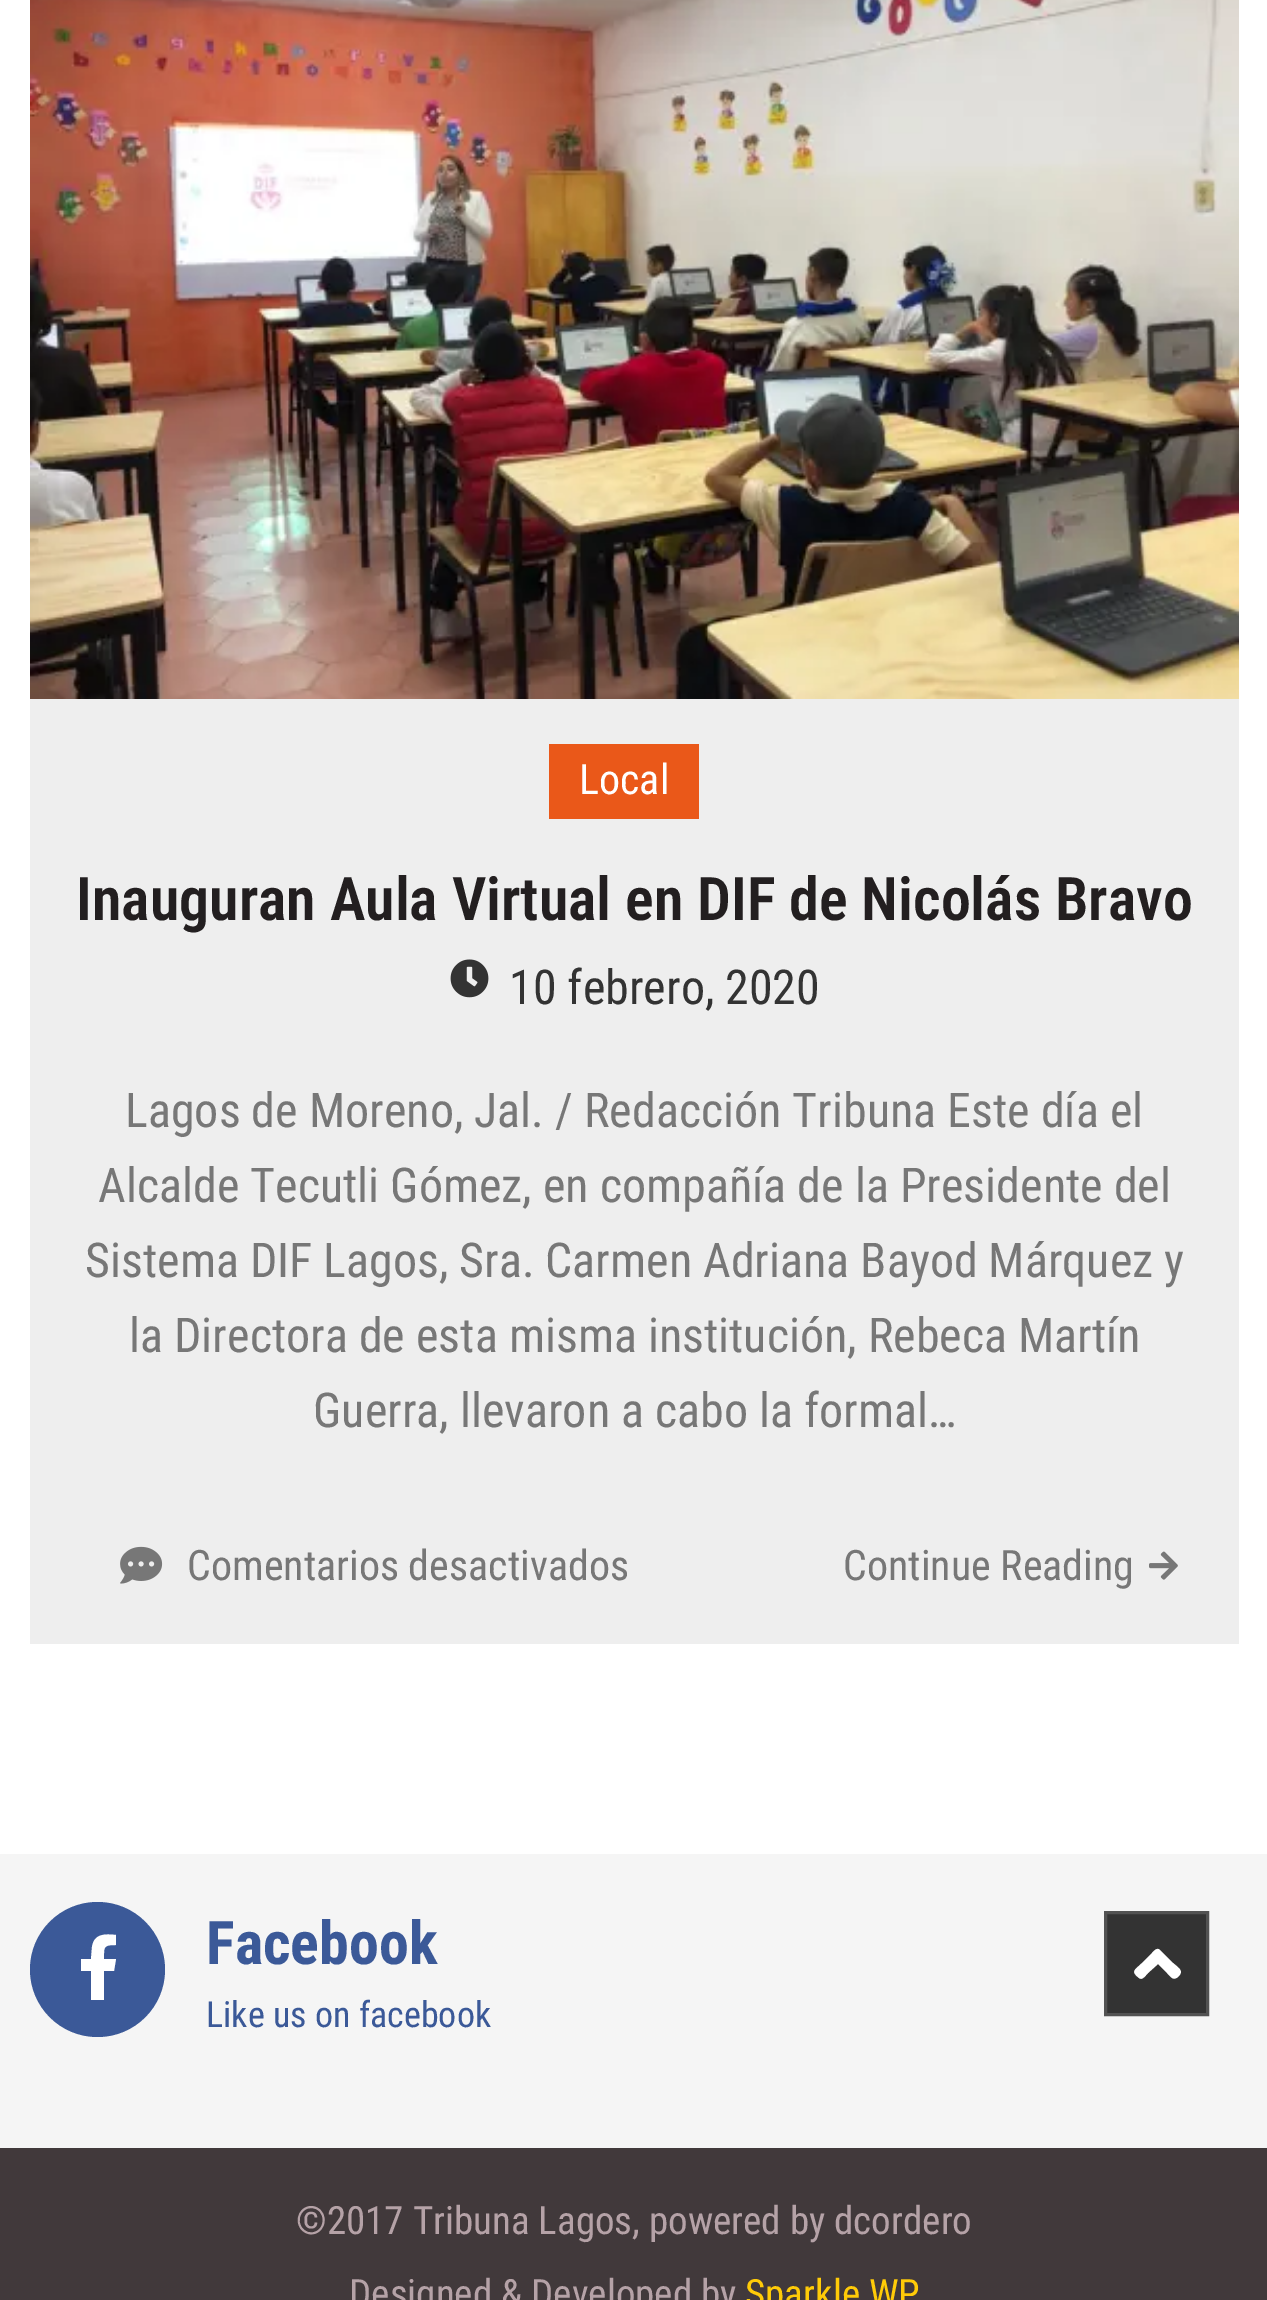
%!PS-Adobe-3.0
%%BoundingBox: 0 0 1267 2300
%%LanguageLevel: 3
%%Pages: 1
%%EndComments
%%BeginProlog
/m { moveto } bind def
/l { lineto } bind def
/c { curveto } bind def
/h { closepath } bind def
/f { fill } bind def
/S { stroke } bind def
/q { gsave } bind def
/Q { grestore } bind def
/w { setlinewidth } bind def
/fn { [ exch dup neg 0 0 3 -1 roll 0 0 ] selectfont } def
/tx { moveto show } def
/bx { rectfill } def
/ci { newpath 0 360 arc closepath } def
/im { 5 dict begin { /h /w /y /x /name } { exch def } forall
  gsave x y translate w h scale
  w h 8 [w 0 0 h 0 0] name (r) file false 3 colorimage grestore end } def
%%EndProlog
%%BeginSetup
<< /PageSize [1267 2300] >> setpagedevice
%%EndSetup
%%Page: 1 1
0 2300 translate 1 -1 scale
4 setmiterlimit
1 setgray
0 0 1267 2300 bx
(image0.raw) 30 0 1209 699 im
0.933 setgray
30 699 1209 945 bx
0.918 0.345 0.098 setrgbcolor
549 744 150 75 bx
/RobotoCondensed-Regular 42 fn
1 setgray
(Local) 579 794 tx
/RobotoCondensed-SemiBold 60 fn
0.137 0.122 0.125 setrgbcolor
(Inauguran Aula Virtual en DIF de Nicolás Bravo) 76 920 tx
(image1.raw) 450 959 39 39 im
/RobotoCondensed-Regular 48 fn
0.2 setgray
(10 febrero, 2020) 509 1004 tx
0.467 setgray
(Lagos de Moreno, Jal. / Redacción Tribuna Este día el) 125 1127 tx
(Alcalde Tecutli Gómez, en compañía de la Presidente del) 98 1202 tx
(Sistema DIF Lagos, Sra. Carmen Adriana Bayod Márquez y) 85 1277 tx
(la Directora de esta misma institución, Rebeca Martín) 129 1352 tx
(Guerra, llevaron a cabo la formal…) 313 1427 tx
(image2.raw) 120 1546 43 38 im
/RobotoCondensed-Regular 42 fn
(Comentarios desactivados) 187 1580 tx
(Continue Reading) 843 1580 tx
(image3.raw) 1149 1551 29 29 im
0.961 setgray
0 1854 1267 294 bx
0.231 0.349 0.596 setrgbcolor
97.5 1969.5 67.5 ci f
1 setgray
114 1971 m 104 1971 l 104 2000 l 91 2000 l 91 1971 l 81 1971 l 81 1959 l 91 1959 l 92 1947 l 94 1933 106 1934 116 1935 c 116 1945 l 103 1945 104 1947 104 1959 c 116 1959 l h f
/RobotoCondensed-Bold 60 fn
0.231 0.349 0.596 setrgbcolor
(Facebook) 206 1964 tx
/RobotoCondensed-Regular 36 fn
(Like us on facebook) 206 2027 tx
0.2 setgray
1105.5 1912.5 m 1207.5 1912.5 l 1207.5 2014.5 l 1105.5 2014.5 l h q f Q
0.322 setgray
3 w
S
1 setgray
1160 1950 m 1173 1963 l 1180 1969 1184 1971 1178 1977 c 1173 1981 1171 1977 1167 1973 c 1158 1964 l 1148 1973 l 1146 1975 1142 1981 1139 1978 c 1130 1971 1135 1970 1142 1963 c 1152 1953 l 1154 1951 1157 1947 1160 1950 c h f
0.255 0.224 0.231 setrgbcolor
0 2148 1267 152 bx
/RobotoCondensed-Regular 39 fn
0.71 0.635 0.655 setrgbcolor
(©2017 Tribuna Lagos, powered by dcordero) 296 2234 tx
(Designed & Developed by) 349 2307 tx
1 0.796 0.031 setrgbcolor
(Sparkle WP) 745 2307 tx
showpage
%%EOF
